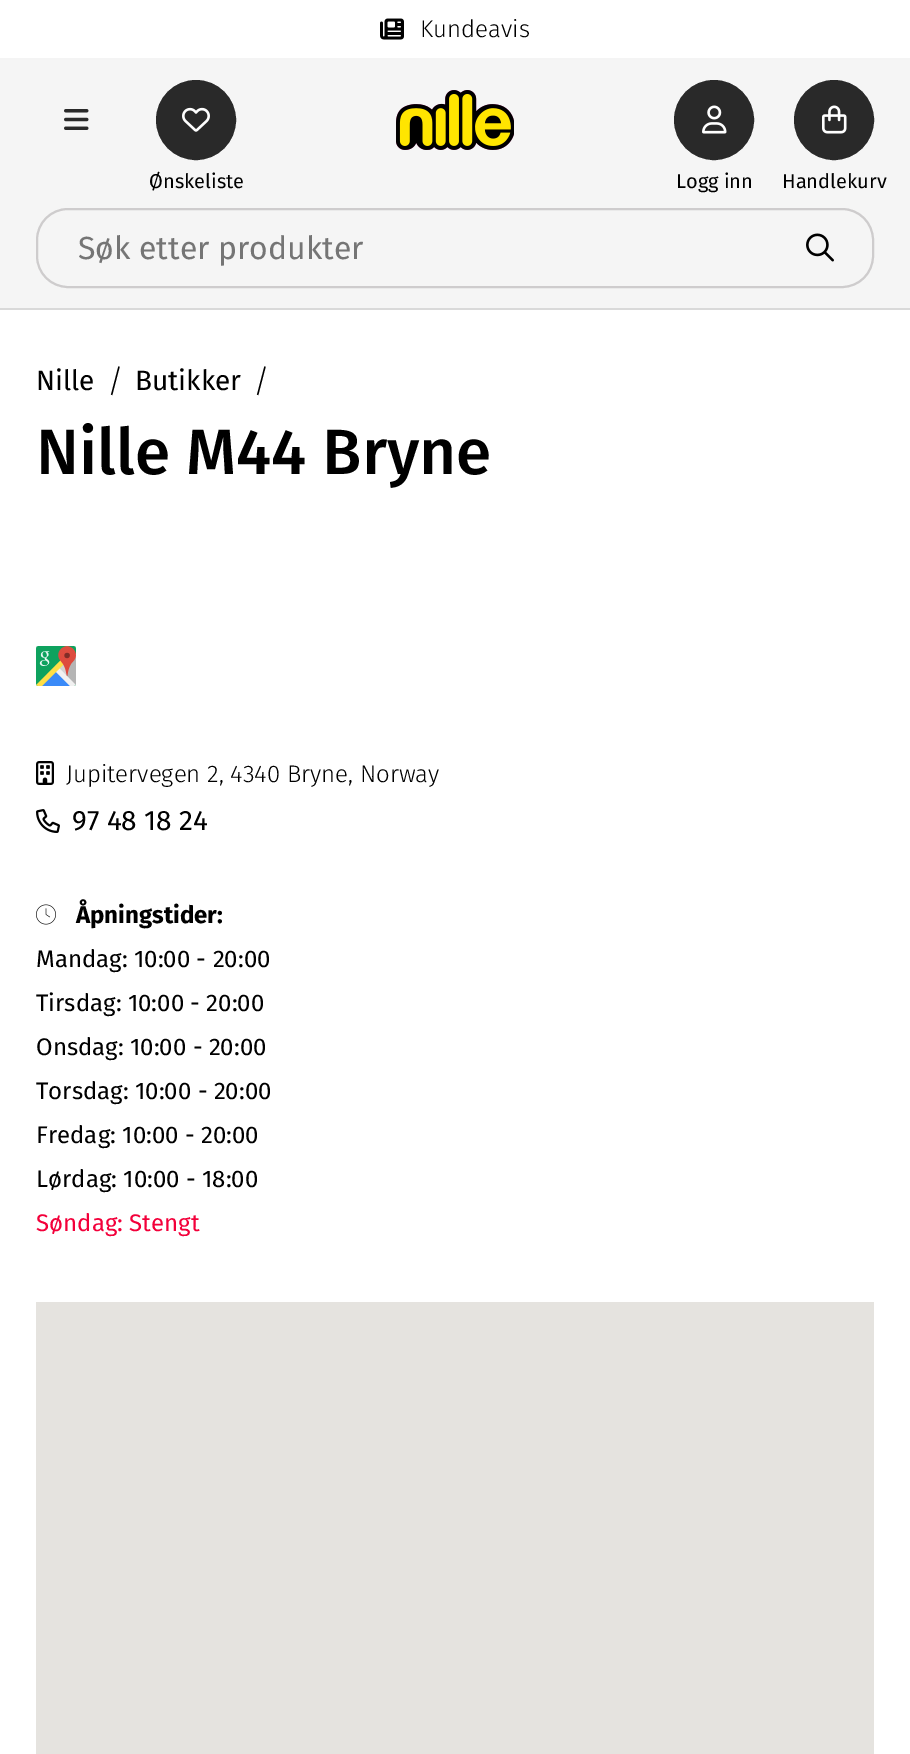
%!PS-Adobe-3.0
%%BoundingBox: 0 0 910 1754
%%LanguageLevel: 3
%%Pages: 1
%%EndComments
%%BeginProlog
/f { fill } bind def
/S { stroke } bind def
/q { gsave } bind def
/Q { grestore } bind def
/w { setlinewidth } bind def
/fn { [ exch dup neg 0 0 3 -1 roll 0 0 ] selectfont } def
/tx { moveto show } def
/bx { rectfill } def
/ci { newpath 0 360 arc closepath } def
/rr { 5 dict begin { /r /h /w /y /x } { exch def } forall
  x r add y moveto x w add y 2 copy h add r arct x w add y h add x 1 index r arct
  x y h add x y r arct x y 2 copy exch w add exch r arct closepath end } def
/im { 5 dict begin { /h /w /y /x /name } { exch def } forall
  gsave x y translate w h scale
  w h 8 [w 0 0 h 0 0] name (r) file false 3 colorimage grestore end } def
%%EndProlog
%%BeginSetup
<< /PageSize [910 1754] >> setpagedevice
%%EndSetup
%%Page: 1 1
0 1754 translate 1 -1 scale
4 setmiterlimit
1 setgray
0 0 910 1754 bx
0.957 setgray
0 58 910 2 bx
(image0.raw) 380 18 24 22 im
/FiraSans-Light 24 fn
0 setgray
(Kundeavis) 420 37 tx
0.961 setgray
0 60 910 248 bx
0.851 setgray
0 308 910 2 bx
(image1.raw) 396 90 118 60 im
(image2.raw) 64 109 25 21 im
0.161 setgray
196 120 39 ci q f Q
2 w
S
(image3.raw) 182 107 28 25 im
/FiraSans-Regular 20 fn
0 setgray
(Ønskeliste) 149 188 tx
0.161 setgray
714 120 39 ci q f Q
S
(image4.raw) 702 105 25 29 im
0 setgray
(Logg inn) 676 188 tx
0.161 setgray
834 120 39 ci q f Q
S
(image5.raw) 822 105 25 29 im
0 setgray
(Handlekurv) 782 188 tx
0.808 0.8 0.804 setrgbcolor
37 209 836 78 31 rr S
/FiraSans-Regular 32 fn
0.459 setgray
(Søk etter produkter) 78 259 tx
(image6.raw) 806 233 28 29 im
/FiraSans-Regular 28 fn
0 setgray
(Nille) 36 390 tx
/FiraSans-Light 32 fn
(/) 107 392 tx
/FiraSans-Regular 28 fn
(Butikker) 135 390 tx
/FiraSans-Light 32 fn
(/) 253 392 tx
/FiraSans-Medium 64 fn
(Nille M44 Bryne) 36 474 tx
(image7.raw) 36 646 40 40 im
(image8.raw) 36 761 18 24 im
/FiraSans-Light 24 fn
(Jupitervegen 2, 4340 Bryne, Norway) 66 782 tx
(image9.raw) 36 809 24 24 im
/FiraSans-Regular 28 fn
(97 48 18 24) 72 830 tx
(image10.raw) 36 904 20 21 im
/FiraSans-Bold 24 fn
(Åpningstider:) 76 923 tx
/FiraSans-Regular 24 fn
(Mandag: 10:00 - 20:00) 36 967 tx
(Tirsdag: 10:00 - 20:00) 36 1011 tx
(Onsdag: 10:00 - 20:00) 36 1055 tx
(Torsdag: 10:00 - 20:00) 36 1099 tx
(Fredag: 10:00 - 20:00) 36 1143 tx
(Lørdag: 10:00 - 18:00) 36 1187 tx
0.953 0 0.227 setrgbcolor
(Søndag: Stengt) 36 1231 tx
0.898 0.89 0.875 setrgbcolor
36 1302 838 452 bx
showpage
%%EOF
